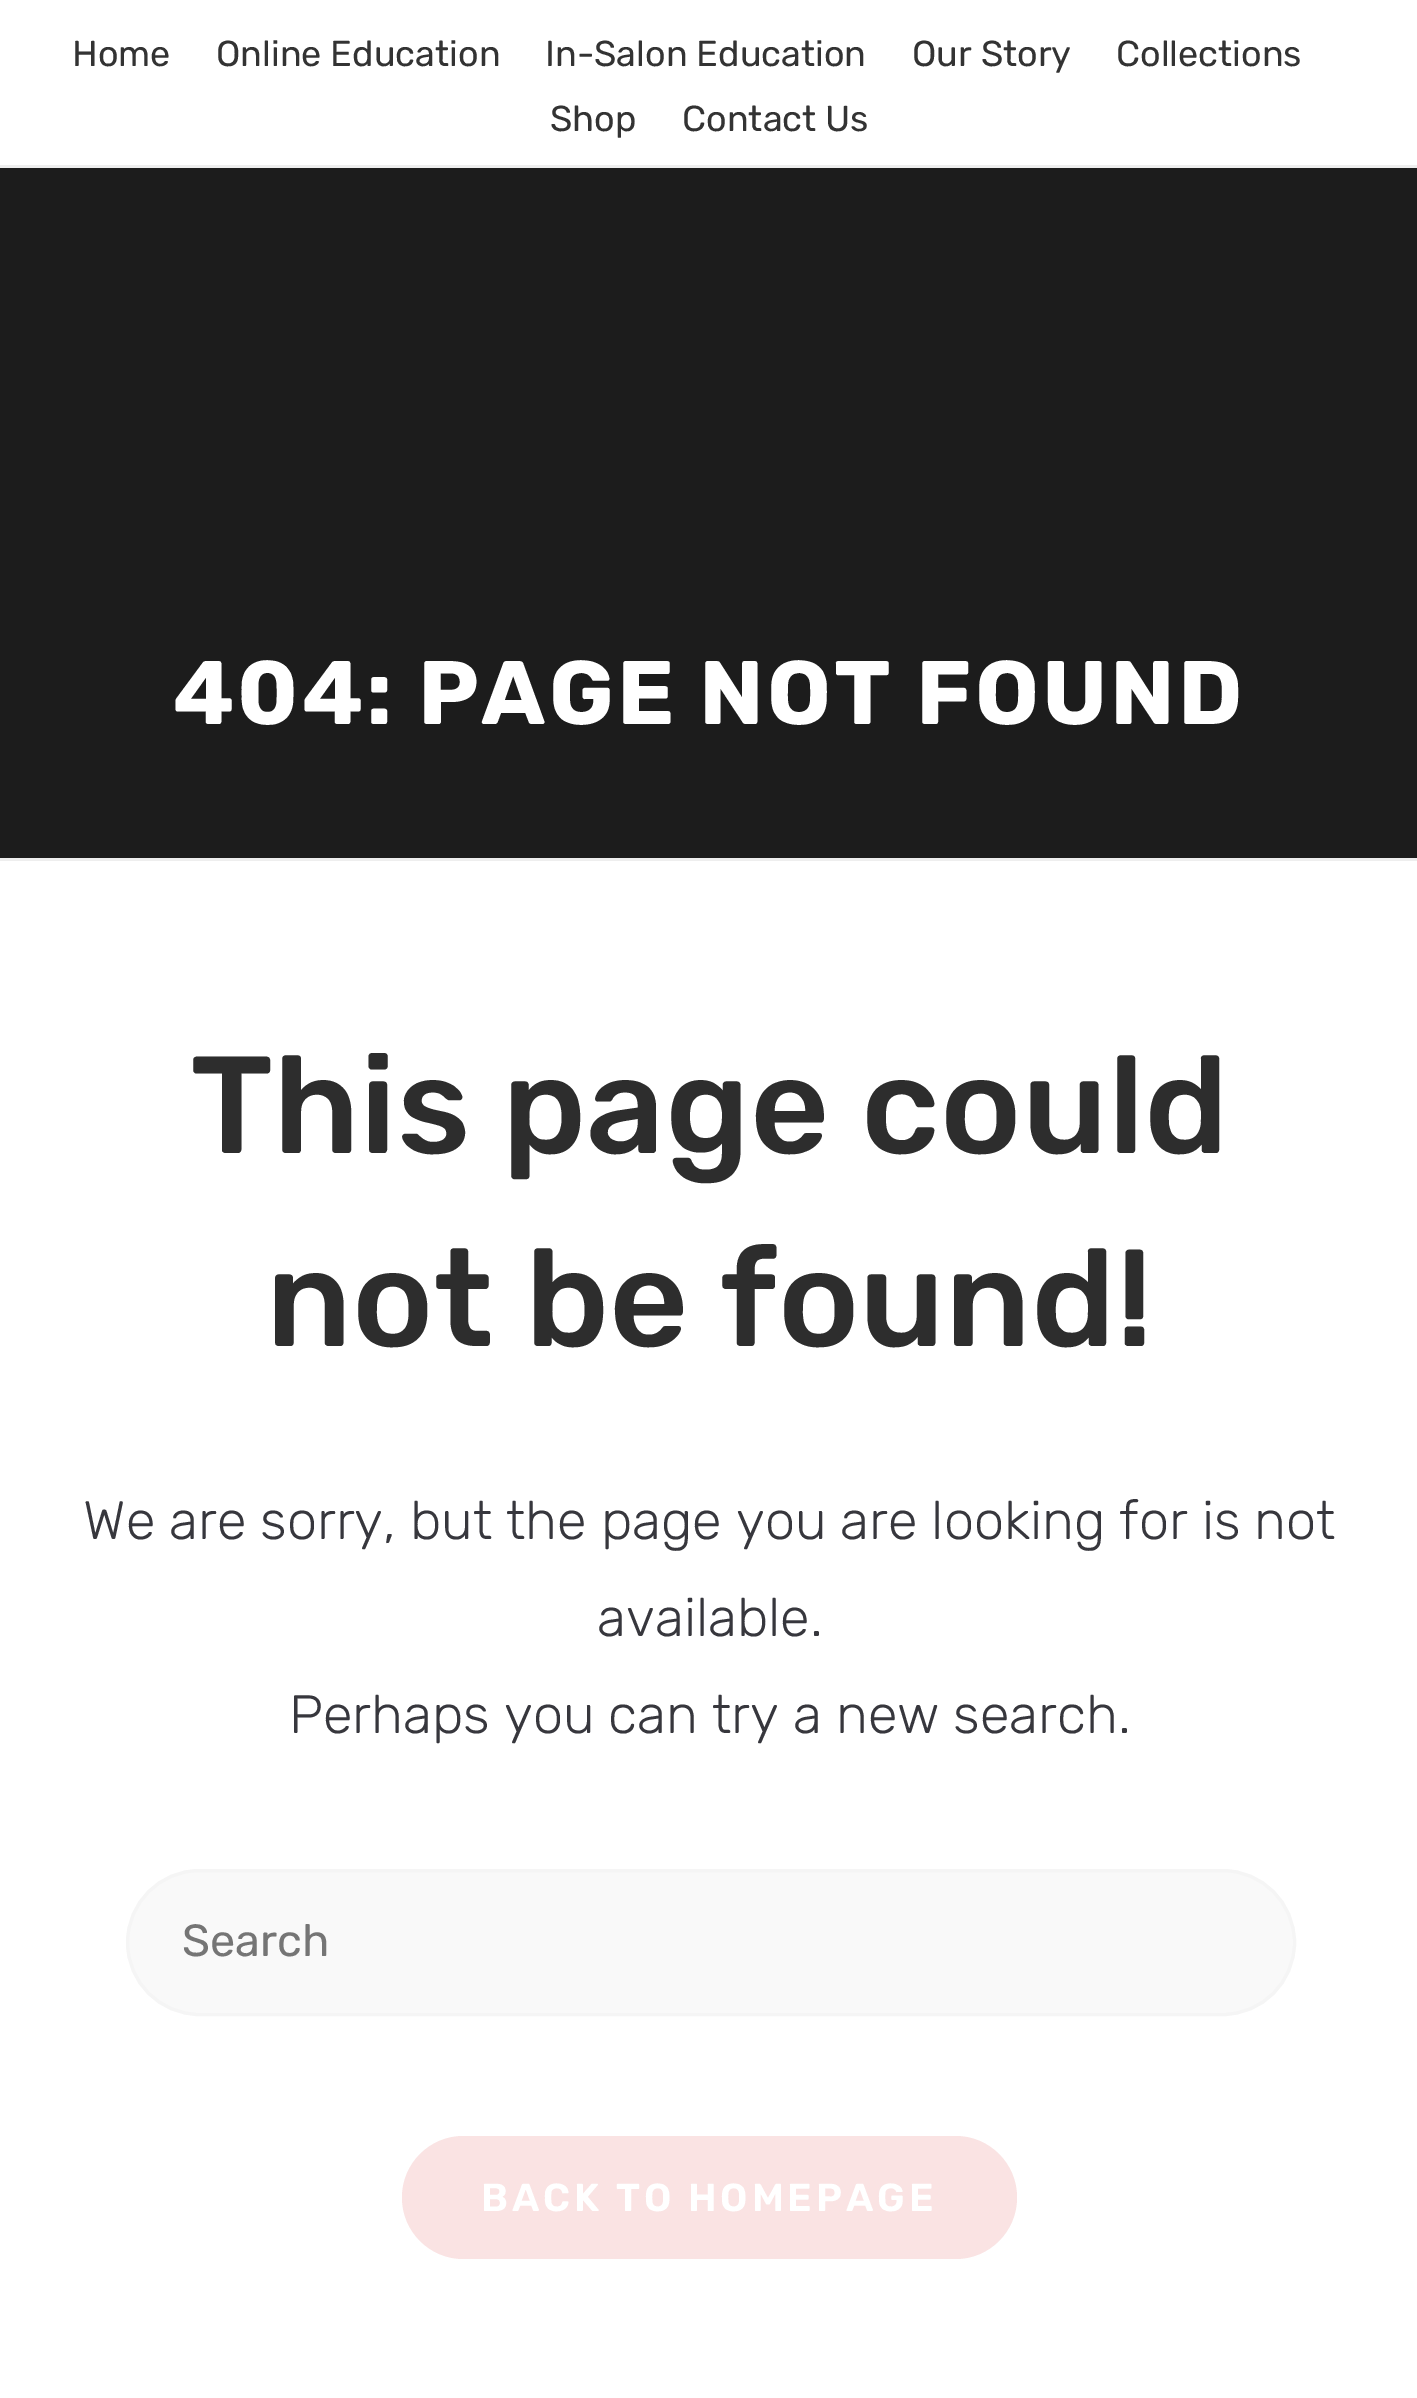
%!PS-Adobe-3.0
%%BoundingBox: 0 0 1417 2398
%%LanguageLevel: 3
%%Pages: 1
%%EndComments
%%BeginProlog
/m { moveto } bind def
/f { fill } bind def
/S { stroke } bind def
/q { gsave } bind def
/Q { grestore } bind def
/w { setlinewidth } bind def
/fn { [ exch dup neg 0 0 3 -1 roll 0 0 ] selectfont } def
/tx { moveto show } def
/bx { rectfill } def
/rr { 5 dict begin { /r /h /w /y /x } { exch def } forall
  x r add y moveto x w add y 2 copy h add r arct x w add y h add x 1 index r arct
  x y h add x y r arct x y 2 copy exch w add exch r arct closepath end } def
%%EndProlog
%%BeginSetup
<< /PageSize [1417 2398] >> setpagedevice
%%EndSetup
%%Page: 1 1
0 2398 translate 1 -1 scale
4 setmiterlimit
1 setgray
0 0 1417 2398 bx
0.933 setgray
0 165 1417 3 bx
/Rubik-Regular 36 fn
0.2 setgray
(Home) 72 66 tx
(Online Education) 216 66 tx
(In-Salon Education) 545 66 tx
(Our Story) 912 66 tx
(Collections) 1116 66 tx
(Shop) 550 131 tx
(Contact Us) 682 131 tx
0.11 setgray
0 168 1417 690 bx
0.933 setgray
0 858 1417 3 bx
/Rubik-Bold 90 fn
1 setgray
173 724 m 3 0 (404: PAGE NOT FOUND) ashow
/Rubik-Medium 138 fn
0.176 setgray
(This page could) 190 1153 tx
(not be found!) 266 1346 tx
/Rubik-Light 54 fn
0.216 0.216 0.239 setrgbcolor
(We are sorry, but the page you are looking for is not) 83 1539 tx
(available.) 597 1636 tx
(Perhaps you can try a new search.) 289 1733 tx
0.976 setgray
127.5 1870.5 1167 144 72 rr q f Q
0.961 setgray
3 w
S
/Rubik-Regular 45 fn
0.459 setgray
(Search) 182 1956 tx
0.98 0.89 0.89 setrgbcolor
402 2136 615 123 61.5 rr f
/Rubik-SemiBold 39 fn
1 setgray
481 2211 m 3.9 0 (BACK TO HOMEPAGE) ashow
showpage
%%EOF
